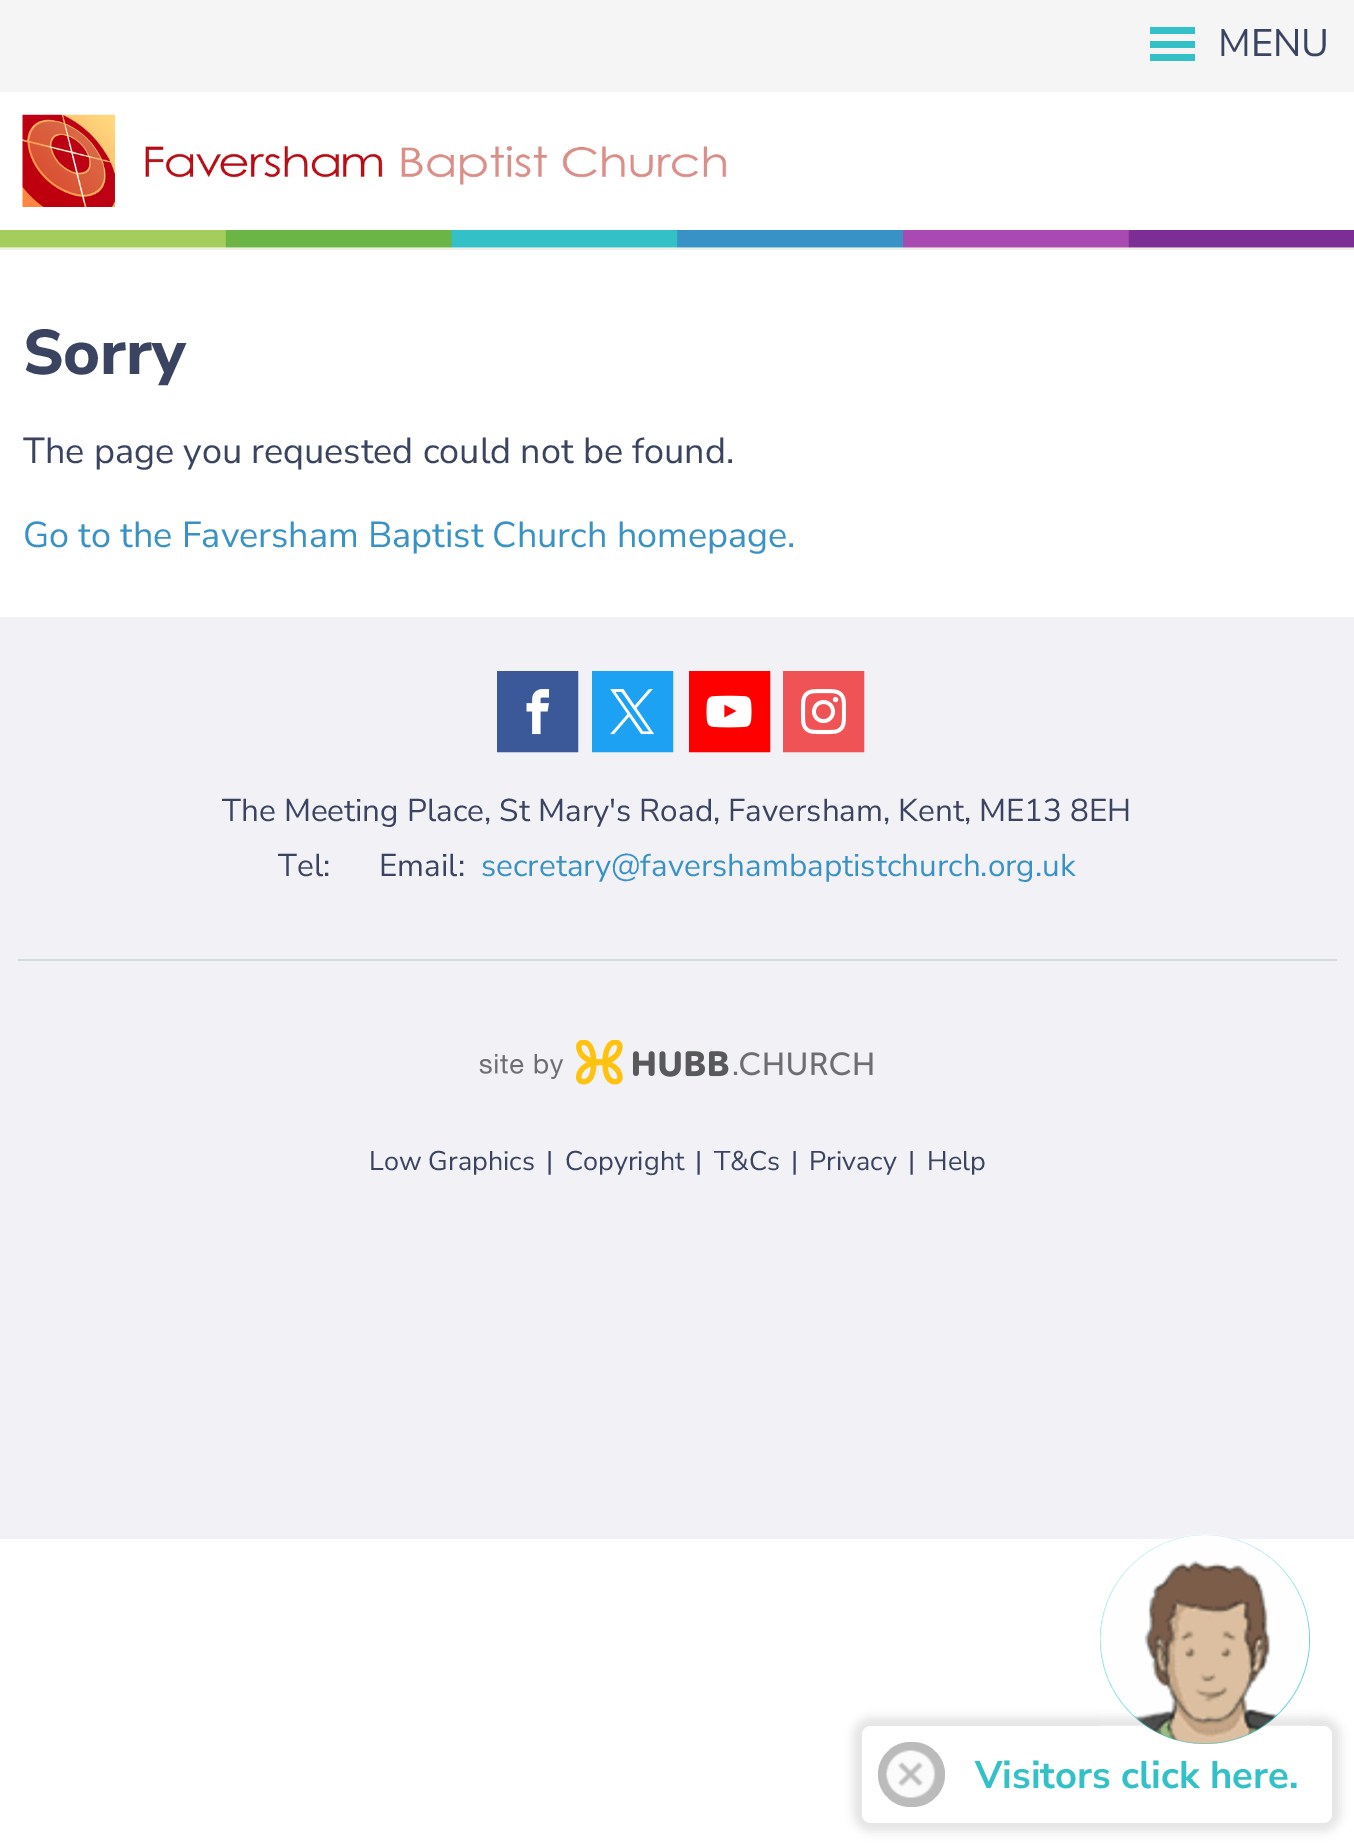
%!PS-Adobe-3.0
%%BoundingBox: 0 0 1354 1845
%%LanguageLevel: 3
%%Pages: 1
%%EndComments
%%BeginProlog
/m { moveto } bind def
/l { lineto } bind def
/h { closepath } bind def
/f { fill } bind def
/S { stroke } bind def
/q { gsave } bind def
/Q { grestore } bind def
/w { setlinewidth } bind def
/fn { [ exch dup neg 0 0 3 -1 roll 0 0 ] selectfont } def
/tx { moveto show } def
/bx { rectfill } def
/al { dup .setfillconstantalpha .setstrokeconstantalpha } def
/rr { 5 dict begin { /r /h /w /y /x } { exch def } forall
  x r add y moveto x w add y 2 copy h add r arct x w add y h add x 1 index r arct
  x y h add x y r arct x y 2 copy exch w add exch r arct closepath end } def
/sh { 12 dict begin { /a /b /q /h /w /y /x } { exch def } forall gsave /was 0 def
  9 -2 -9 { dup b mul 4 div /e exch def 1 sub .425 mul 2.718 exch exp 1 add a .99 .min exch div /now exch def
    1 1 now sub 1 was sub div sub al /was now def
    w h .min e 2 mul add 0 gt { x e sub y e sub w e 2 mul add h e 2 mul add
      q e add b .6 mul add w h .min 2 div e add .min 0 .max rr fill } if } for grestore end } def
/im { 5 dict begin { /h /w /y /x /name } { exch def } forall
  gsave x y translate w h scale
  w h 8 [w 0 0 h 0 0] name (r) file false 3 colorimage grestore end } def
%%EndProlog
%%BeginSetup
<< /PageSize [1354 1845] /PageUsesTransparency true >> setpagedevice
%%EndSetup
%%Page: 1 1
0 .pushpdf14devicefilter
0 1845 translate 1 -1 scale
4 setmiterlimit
1 setgray
0 0 1354 1845 bx
0.961 setgray
0 0 1354 92 bx
0.2 0.753 0.78 setrgbcolor
1150 27 45 7 bx
1150 41 45 7 bx
1150 54 45 7 bx
/NunitoSans-Regular 38.25 fn
0.227 0.263 0.376 setrgbcolor
(MENU) 1218 56 tx
(image0.raw) 22 114 705 93 im
(image1.raw) 0 230 1354 18 im
0.941 0.937 0.894 setrgbcolor
0 248 1354 2 bx
/NunitoSans-ExtraBold 63 fn
0.227 0.263 0.376 setrgbcolor
(Sorry) 23 374 tx
/NunitoSans-Regular 36 fn
(The page you requested could not be found.) 23 463 tx
0.22 0.573 0.773 setrgbcolor
(Go to the Faversham Baptist Church homepage.) 23 547 tx
0.949 0.945 0.965 setrgbcolor
0 617 1354 922 bx
0.231 0.349 0.596 setrgbcolor
506 680 m 569 680 l 569 743 l 506 743 l h q f Q
18 w
S
(image2.raw) 526 689 23 46 im
0.114 0.631 0.949 setrgbcolor
601 680 m 664 680 l 664 743 l 601 743 l h q f Q
S
(image3.raw) 610 689 44 46 im
1 0 0 setrgbcolor
698 680 m 761 680 l 761 743 l 698 743 l h q f Q
S
(image4.raw) 706 695 46 33 im
0.941 0.325 0.337 setrgbcolor
792 680 m 855 680 l 855 743 l 792 743 l h q f Q
S
(image5.raw) 801 689 45 46 im
/NunitoSans-Regular 31.5 fn
0.227 0.263 0.376 setrgbcolor
(The Meeting Place, St Mary's Road, Faversham, Kent, ME13 8EH) 222 821 tx
(Tel:) 278 876 tx
(Email:) 379 876 tx
0.22 0.573 0.773 setrgbcolor
(secretary@favershambaptistchurch.org.uk) 481 876 tx
0.82 0.859 0.875 setrgbcolor
18 959 1319 2 bx
(image6.raw) 479 1040 394 45 im
/NunitoSans-Regular 27 fn
0.227 0.263 0.376 setrgbcolor
(Low Graphics) 369 1170 tx
(|) 546 1170 tx
(Copyright) 565 1170 tx
(|) 695 1170 tx
(T&Cs) 714 1170 tx
(|) 791 1170 tx
(Privacy) 809 1170 tx
(|) 908 1170 tx
(Help) 927 1170 tx
0.502 setgray
853 1717 488 115 18 4.5 0.2 sh
1 setgray
862 1726 470 97 9 rr f
0.733 setgray
878 1742 67 65 32.5 rr f
(image7.raw) 886 1750 50 48 im
0.2 0.753 0.78 setrgbcolor
1100 1535 210 209 104.5 rr f
(image8.raw) 1100 1534 210 210 im
/NunitoSans-Bold 38.25 fn
(Visitors click here.) 975 1788 tx
.poppdf14devicefilter showpage
%%EOF
